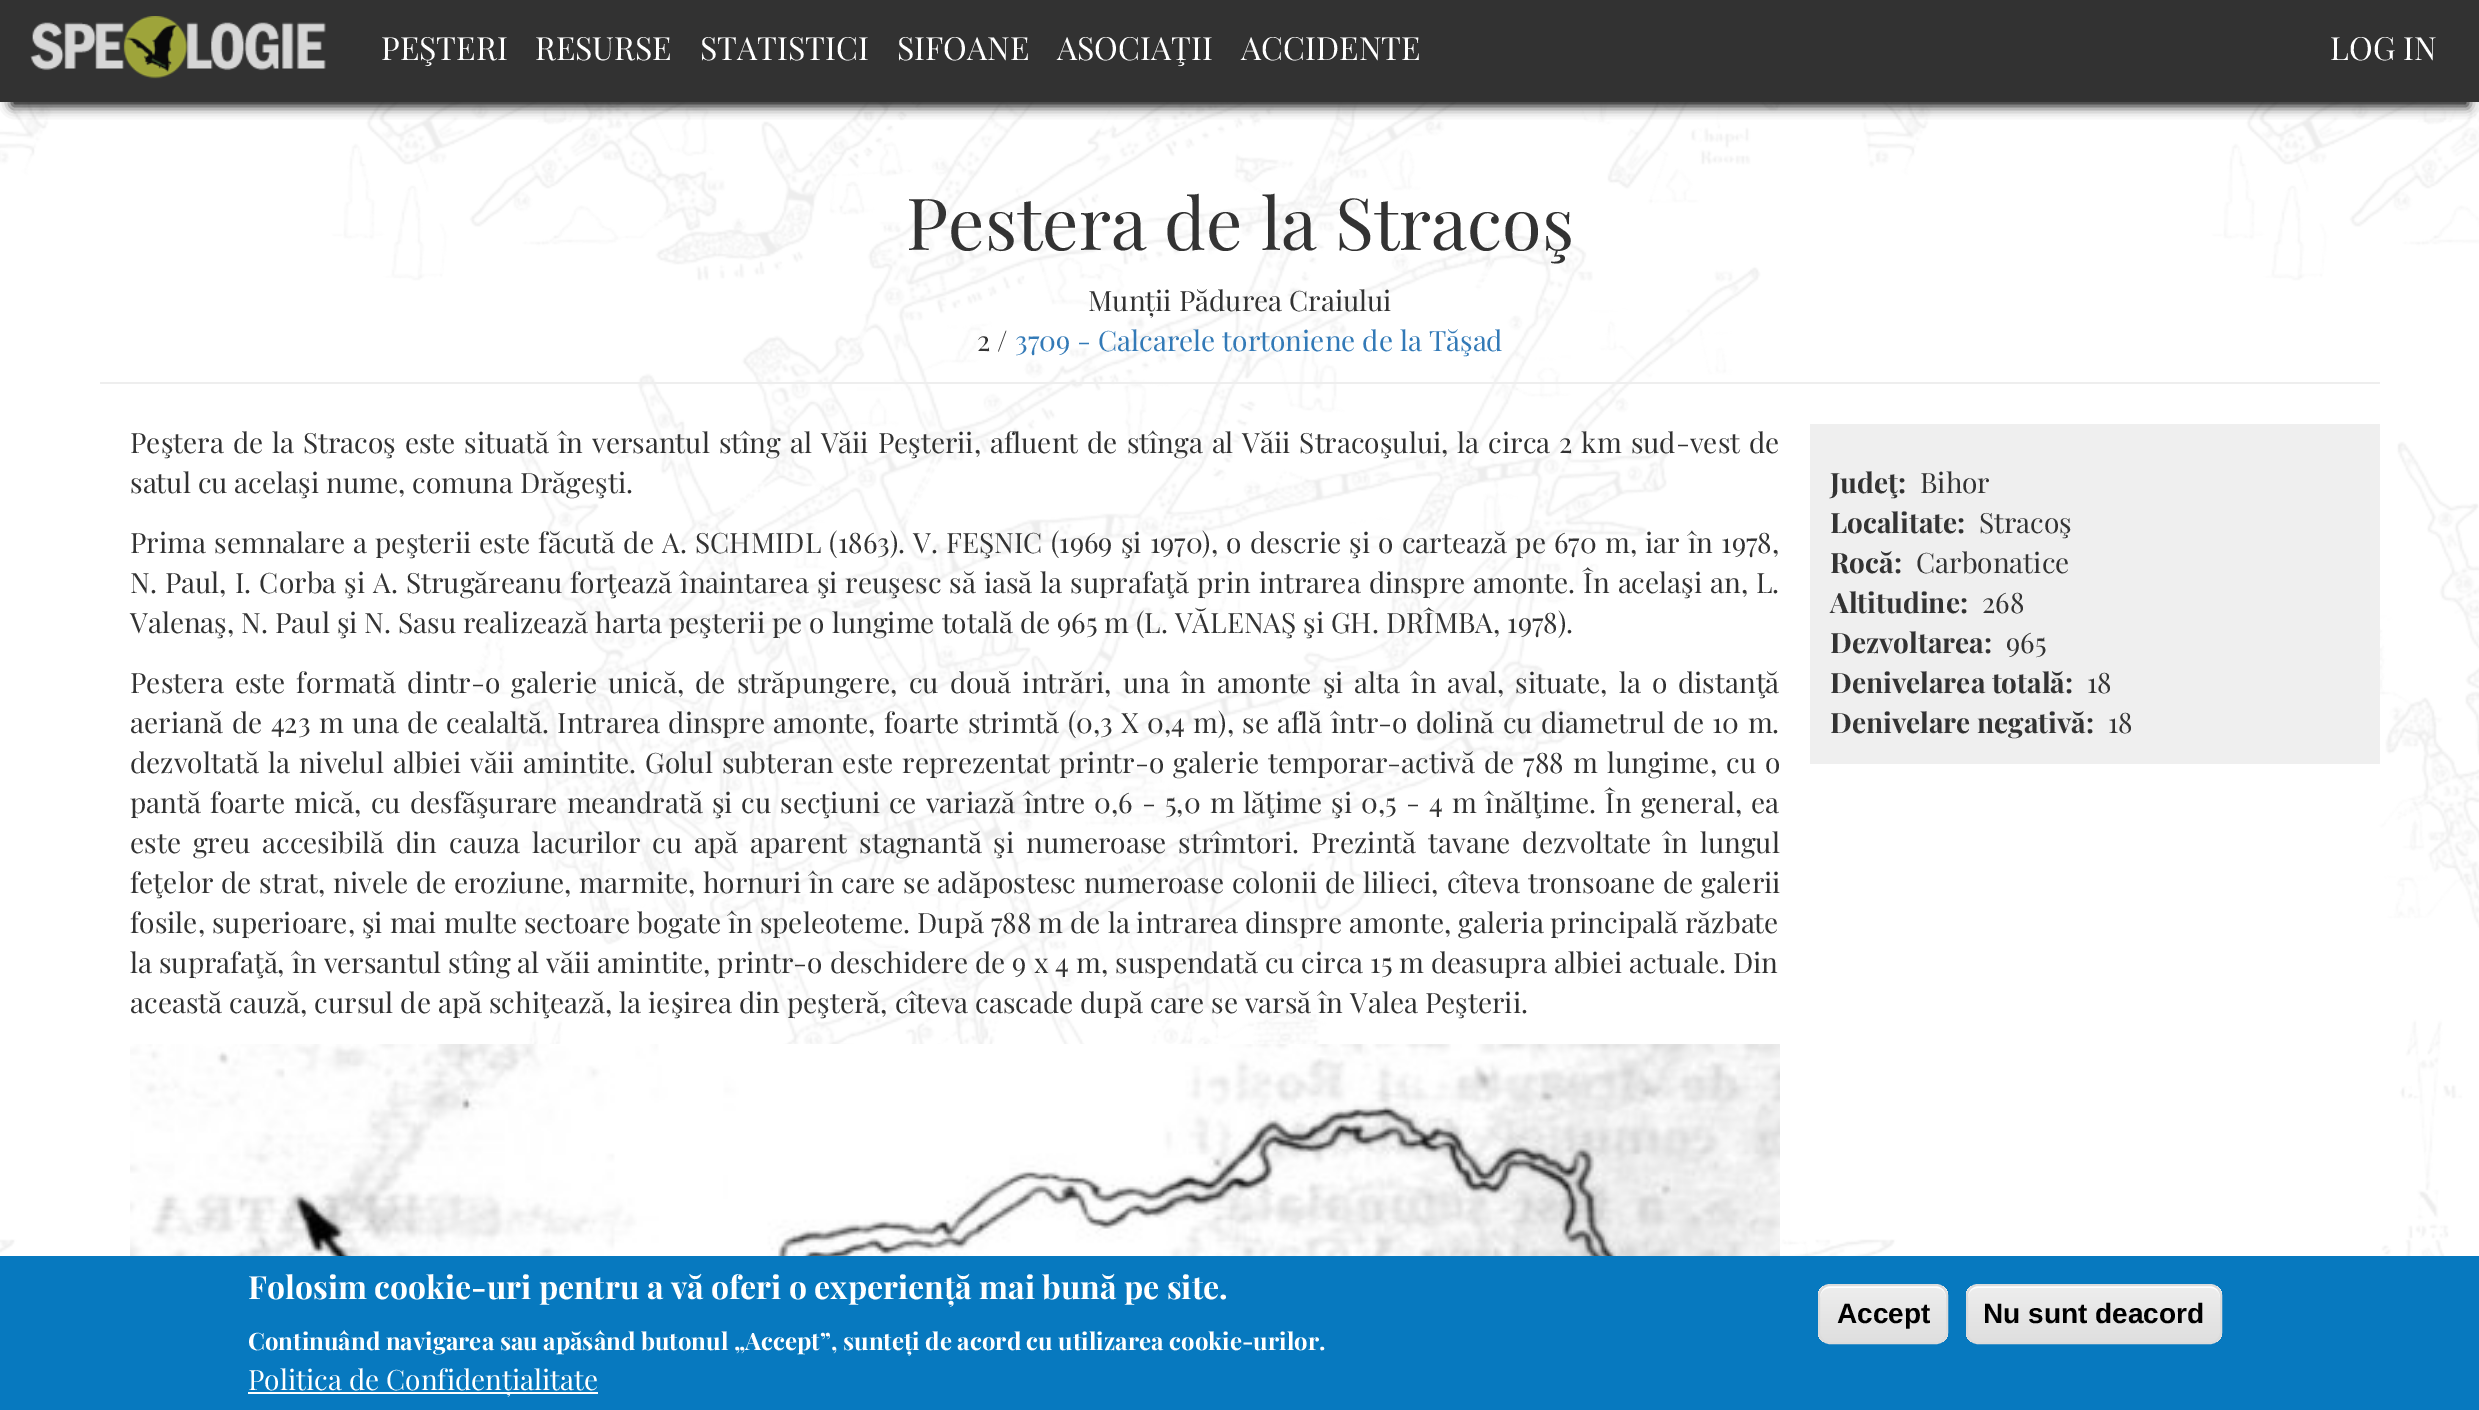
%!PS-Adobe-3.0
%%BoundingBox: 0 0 2479 1410
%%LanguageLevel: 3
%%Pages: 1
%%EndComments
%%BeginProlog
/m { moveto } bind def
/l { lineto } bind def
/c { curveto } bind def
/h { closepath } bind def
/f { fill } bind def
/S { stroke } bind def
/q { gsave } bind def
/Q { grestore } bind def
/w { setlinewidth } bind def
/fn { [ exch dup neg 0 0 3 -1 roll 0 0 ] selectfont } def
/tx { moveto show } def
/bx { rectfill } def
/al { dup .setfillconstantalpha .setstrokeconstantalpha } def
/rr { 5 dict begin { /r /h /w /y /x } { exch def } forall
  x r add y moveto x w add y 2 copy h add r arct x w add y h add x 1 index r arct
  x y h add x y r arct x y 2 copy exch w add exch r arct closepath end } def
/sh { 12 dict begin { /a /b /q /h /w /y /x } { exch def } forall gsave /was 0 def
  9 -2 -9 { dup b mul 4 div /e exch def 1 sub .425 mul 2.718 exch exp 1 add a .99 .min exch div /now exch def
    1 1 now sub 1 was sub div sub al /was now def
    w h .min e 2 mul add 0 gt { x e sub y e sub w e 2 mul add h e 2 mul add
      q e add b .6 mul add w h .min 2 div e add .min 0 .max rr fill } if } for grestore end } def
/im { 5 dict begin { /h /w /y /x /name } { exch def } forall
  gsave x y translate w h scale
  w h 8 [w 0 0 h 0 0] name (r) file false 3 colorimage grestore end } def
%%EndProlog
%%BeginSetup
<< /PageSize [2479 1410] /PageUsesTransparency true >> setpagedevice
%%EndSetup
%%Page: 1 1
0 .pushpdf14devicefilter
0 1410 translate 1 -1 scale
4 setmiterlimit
1 setgray
0 0 2479 1410 bx
(image0.raw) 0 102 2479 1154 im
0 setgray
12 28 2456 78 0 6 1 sh
0.196 setgray
0 0 2479 102 bx
(image1.raw) 30 16 296 63 im
/PlayfairDisplay-Regular 32 fn
1 setgray
(PEŞTERI) 381 60 tx
(RESURSE) 535 60 tx
(STATISTICI) 700 60 tx
(SIFOANE) 897 60 tx
(ASOCIAŢII) 1057 60 tx
(ACCIDENTE) 1241 60 tx
(LOG IN) 2330 60 tx
0.933 setgray
100 382 2280 2 bx
/PlayfairDisplay-Regular 72 fn
0.2 setgray
(Pestera de la Stracoş) 906 250 tx
/PlayfairDisplay-Regular 28 fn
(Munții Pădurea Craiului) 1088 311 tx
(2 /) 977 351 tx
0.2 0.478 0.718 setrgbcolor
(3709 - Calcarele tortoniene de la Tăşad) 1015 351 tx
0.2 setgray
130 453 m 2 0 32 (Peştera de la Stracoş este situată în versantul stîng al Văii Peşterii, afluent de stînga al Văii Stracoşului, la circa 2 km sud-vest de) widthshow
(satul cu acelaşi nume, comuna Drăgeşti.) 130 493 tx
130 553 m 1.25 0 32 (Prima semnalare a peşterii este făcută de A. SCHMIDL \(1863\). V. FEŞNIC \(1969 şi 1970\), o descrie şi o cartează pe 670 m, iar în 1978,) widthshow
130 593 m 1.1 0 32 (N. Paul, I. Corba şi A. Strugăreanu forţează înaintarea şi reuşesc să iasă la suprafaţă prin intrarea dinspre amonte. În acelaşi an, L.) widthshow
(Valenaş, N. Paul şi N. Sasu realizează harta peşterii pe o lungime totală de 965 m \(L. VĂLENAŞ şi GH. DRÎMBA, 1978\).) 130 633 tx
130 693 m 4.1 0 32 (Pestera este formată dintr-o galerie unică, de străpungere, cu două intrări, una în amonte şi alta în aval, situate, la o distanţă) widthshow
130 733 m 1.4 0 32 (aeriană de 423 m una de cealaltă. Intrarea dinspre amonte, foarte strimtă \(0,3 X 0,4 m\), se află într-o dolină cu diametrul de 10 m.) widthshow
130 773 m 2.1 0 32 (dezvoltată la nivelul albiei văii amintite. Golul subteran este reprezentat printr-o galerie temporar-activă de 788 m lungime, cu o) widthshow
130 813 m 2 0 32 (pantă foarte mică, cu desfăşurare meandrată şi cu secţiuni ce variază între 0,6 - 5,0 m lăţime şi 0,5 - 4 m înălţime. În general, ea) widthshow
130 853 m 4.9 0 32 (este greu accesibilă din cauza lacurilor cu apă aparent stagnantă şi numeroase strîmtori. Prezintă tavane dezvoltate în lungul) widthshow
130 893 m 0.75 0 32 (feţelor de strat, nivele de eroziune, marmite, hornuri în care se adăpostesc numeroase colonii de lilieci, cîteva tronsoane de galerii) widthshow
(fosile, superioare, şi mai multe sectoare bogate în speleoteme. După 788 m de la intrarea dinspre amonte, galeria principală răzbate) 130 933 tx
(la suprafaţă, în versantul stîng al văii amintite, printr-o deschidere de 9 x 4 m, suspendată cu circa 15 m deasupra albiei actuale. Din) 130 973 tx
(această cauză, cursul de apă schiţează, la ieşirea din peşteră, cîteva cascade după care se varsă în Valea Peşterii.) 130 1013 tx
(image2.raw) 130 1044 1650 212 im
0.937 setgray
1810 424 570 340 bx
/PlayfairDisplay-Bold 28 fn
0.2 setgray
(Judeţ:) 1830 493 tx
/PlayfairDisplay-Regular 28 fn
(Bihor) 1920 493 tx
/PlayfairDisplay-Bold 28 fn
(Localitate:) 1830 533 tx
/PlayfairDisplay-Regular 28 fn
(Stracoş) 1979 533 tx
/PlayfairDisplay-Bold 28 fn
(Rocă:) 1830 573 tx
/PlayfairDisplay-Regular 28 fn
(Carbonatice) 1916 573 tx
/PlayfairDisplay-Bold 28 fn
(Altitudine:) 1830 613 tx
/PlayfairDisplay-Regular 28 fn
(268) 1982 613 tx
/PlayfairDisplay-Bold 28 fn
(Dezvoltarea:) 1830 653 tx
/PlayfairDisplay-Regular 28 fn
(965) 2006 653 tx
/PlayfairDisplay-Bold 28 fn
(Denivelarea totală:) 1830 693 tx
/PlayfairDisplay-Regular 28 fn
(18) 2087 693 tx
/PlayfairDisplay-Bold 28 fn
(Denivelare negativă:) 1830 733 tx
/PlayfairDisplay-Regular 28 fn
(18) 2108 733 tx
0.027 0.475 0.749 setrgbcolor
0 1256 2479 154 bx
/PlayfairDisplay-Bold 32 fn
1 setgray
(Folosim cookie-uri pentru a vă oferi o experiență mai bună pe site.) 248 1299 tx
/PlayfairDisplay-Bold 24 fn
(Continuând navigarea sau apăsând butonul „Accept”, sunteți de acord cu utilizarea cookie-urilor.) 248 1350 tx
248 1392 350 2 bx
/PlayfairDisplay-Regular 28 fn
(Politica de Confidențialitate) 248 1390 tx
q
1818 1284 130 60 12 rr clip newpath
q 1818 1286 m 1948 1286 l 1948 1342 l 1818 1342 l h clip newpath
<< /ShadingType 2 /ColorSpace /DeviceRGB /Coords [1883 1286 1883 1342] /Extend [true true] /Function << /FunctionType 3 /Domain [0 1] /Functions [<< /FunctionType 2 /Domain [0 1] /C0 [0.929 0.929 0.929] /C1 [0.929 0.929 0.929] /N 1 >> << /FunctionType 2 /Domain [0 1] /C0 [0.929 0.929 0.929] /C1 [0.875 0.875 0.875] /N 1 >>] /Bounds [0.05] /Encode [0 1 0 1] >> >> shfill Q
Q
1830 1288 m 1936 1288 l 1942 1288 1946 1292 1946 1298 c 1946 1282 1930 1286 1918 1286 c 1848 1286 l 1836 1286 1820 1282 1820 1298 c 1820 1292 1824 1288 1830 1288 c h f
0.863 setgray
2 w
1819 1285 128 58 11 rr S
/LiberationSans-Bold 28 fn
0 setgray
(Accept) 1837 1323 tx
q
1966 1284 256 60 12 rr clip newpath
q 1966 1286 m 2222 1286 l 2222 1342 l 1966 1342 l h clip newpath
<< /ShadingType 2 /ColorSpace /DeviceRGB /Coords [2094 1286 2094 1342] /Extend [true true] /Function << /FunctionType 3 /Domain [0 1] /Functions [<< /FunctionType 2 /Domain [0 1] /C0 [0.929 0.929 0.929] /C1 [0.929 0.929 0.929] /N 1 >> << /FunctionType 2 /Domain [0 1] /C0 [0.929 0.929 0.929] /C1 [0.875 0.875 0.875] /N 1 >>] /Bounds [0.05] /Encode [0 1 0 1] >> >> shfill Q
Q
1 setgray
1978 1288 m 2210 1288 l 2216 1288 2220 1292 2220 1298 c 2220 1296 l 2220 1290 2216 1286 2210 1286 c 1978 1286 l 1972 1286 1968 1290 1968 1296 c 1968 1298 l 1968 1292 1972 1288 1978 1288 c h f
0.863 setgray
1967 1285 254 58 11 rr S
0 setgray
(Nu sunt deacord) 1983 1323 tx
.poppdf14devicefilter showpage
%%EOF
